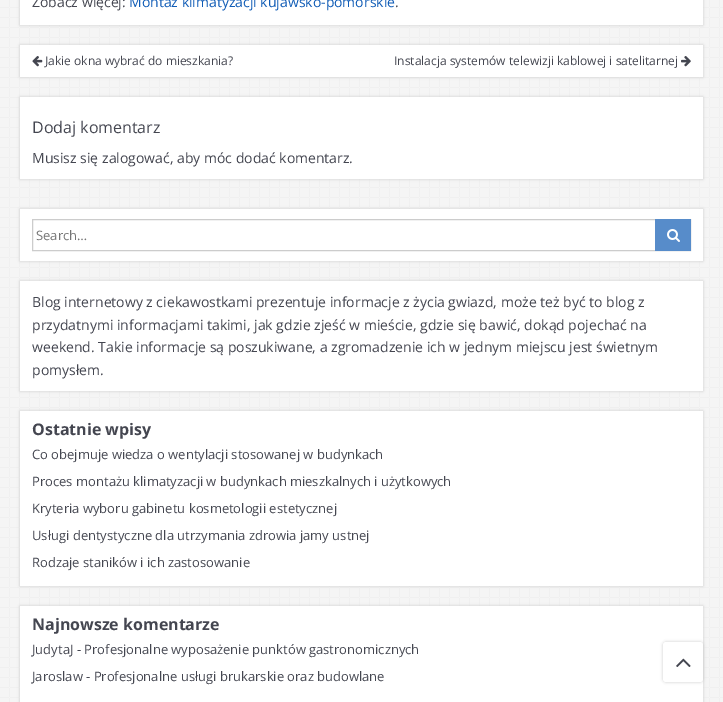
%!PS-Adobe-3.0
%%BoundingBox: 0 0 723 702
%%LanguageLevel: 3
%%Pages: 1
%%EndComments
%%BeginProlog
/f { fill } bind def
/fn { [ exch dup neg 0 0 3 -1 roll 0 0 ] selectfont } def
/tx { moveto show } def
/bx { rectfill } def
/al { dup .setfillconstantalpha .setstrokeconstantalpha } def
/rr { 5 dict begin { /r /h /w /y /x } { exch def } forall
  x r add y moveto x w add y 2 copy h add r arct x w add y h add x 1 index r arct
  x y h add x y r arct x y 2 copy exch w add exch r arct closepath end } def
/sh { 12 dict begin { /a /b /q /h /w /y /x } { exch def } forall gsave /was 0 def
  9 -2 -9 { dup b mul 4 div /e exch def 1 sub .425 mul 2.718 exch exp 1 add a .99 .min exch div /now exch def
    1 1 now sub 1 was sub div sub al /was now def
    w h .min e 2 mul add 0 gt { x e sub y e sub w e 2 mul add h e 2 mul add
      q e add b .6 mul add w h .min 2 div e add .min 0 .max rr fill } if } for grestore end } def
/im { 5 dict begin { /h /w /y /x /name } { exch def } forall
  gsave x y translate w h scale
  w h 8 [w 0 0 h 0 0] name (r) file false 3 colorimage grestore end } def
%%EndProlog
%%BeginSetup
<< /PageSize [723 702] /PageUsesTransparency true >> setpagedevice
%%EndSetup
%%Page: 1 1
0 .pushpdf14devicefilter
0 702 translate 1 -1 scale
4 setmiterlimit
1 setgray
0 0 723 702 bx
(image0.raw) 0 0 723 702 im
0.8 setgray
20 -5 683 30 0 1.5 1 sh
1 setgray
20 0 683 25 bx
/OpenSans-Regular 14 fn
0.267 0.275 0.314 setrgbcolor
(Zobacz więcej:) 32 7 tx
0.063 0.361 0.714 setrgbcolor
(Montaż klimatyzacji kujawsko-pomorskie) 129 7 tx
0.267 0.275 0.314 setrgbcolor
(.) 395 7 tx
0.8 setgray
20 45 683 32 0 1.5 1 sh
1 setgray
20 45 683 32 bx
(image1.raw) 32 56 11 11 im
/OpenSans-Regular 12 fn
0.267 0.275 0.314 setrgbcolor
(Jakie okna wybrać do mieszkania?) 45 65 tx
(Instalacja systemów telewizji kablowej i satelitarnej) 394 65 tx
(image2.raw) 681 56 10 11 im
0.8 setgray
20 97 683 82 0 1.5 1 sh
1 setgray
20 97 683 82 bx
/OpenSans-Regular 16 fn
0.267 0.275 0.314 setrgbcolor
(Dodaj komentarz) 32 133 tx
/OpenSans-Regular 14 fn
(Musisz się zalogować, aby móc dodać komentarz.) 32 163 tx
0.8 setgray
20 209 683 52 0 1.5 1 sh
1 setgray
20 209 683 52 bx
0.8 setgray
32.5 219.5 658 31 rectstroke
/OpenSans-Regular 13 fn
0.459 setgray
(Search…) 36 240 tx
0.341 0.549 0.792 setrgbcolor
655 219 36 32 bx
(image3.raw) 667 229 13 13 im
0.8 setgray
20 281 683 110 0 1.5 1 sh
1 setgray
20 281 683 110 bx
/OpenSans-Regular 14 fn
0.267 0.275 0.314 setrgbcolor
(Blog internetowy z ciekawostkami prezentuje informacje z życia gwiazd, może też być to blog z) 32 307 tx
(przydatnymi informacjami takimi, jak gdzie zjeść w mieście, gdzie się bawić, dokąd pojechać na) 32 330 tx
(weekend. Takie informacje są poszukiwane, a zgromadzenie ich w jednym miejscu jest świetnym) 32 352 tx
(pomysłem.) 32 375 tx
0.8 setgray
20 411 683 175 0 1.5 1 sh
1 setgray
20 411 683 175 bx
/OpenSans-Bold 16 fn
0.267 0.275 0.314 setrgbcolor
(Ostatnie wpisy) 32 435 tx
/OpenSans-Regular 13 fn
(Co obejmuje wiedza o wentylacji stosowanej w budynkach) 32 459 tx
(Proces montażu klimatyzacji w budynkach mieszkalnych i użytkowych) 32 486 tx
(Kryteria wyboru gabinetu kosmetologii estetycznej) 32 513 tx
(Usługi dentystyczne dla utrzymania zdrowia jamy ustnej) 32 540 tx
(Rodzaje staników i ich zastosowanie) 32 567 tx
0.8 setgray
20 606 683 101 0 1.5 1 sh
1 setgray
20 606 683 96 bx
/OpenSans-Bold 16 fn
0.267 0.275 0.314 setrgbcolor
(Najnowsze komentarze) 32 630 tx
/OpenSans-Regular 13 fn
(JudytaJ - Profesjonalne wyposażenie punktów gastronomicznych) 32 654 tx
(Jaroslaw - Profesjonalne usługi brukarskie oraz budowlane) 32 681 tx
0.8 setgray
663 642 40 40 3 1.5 1 sh
1 setgray
663 642 40 40 3 rr f
(image4.raw) 676 658 15 9 im
.poppdf14devicefilter showpage
%%EOF
